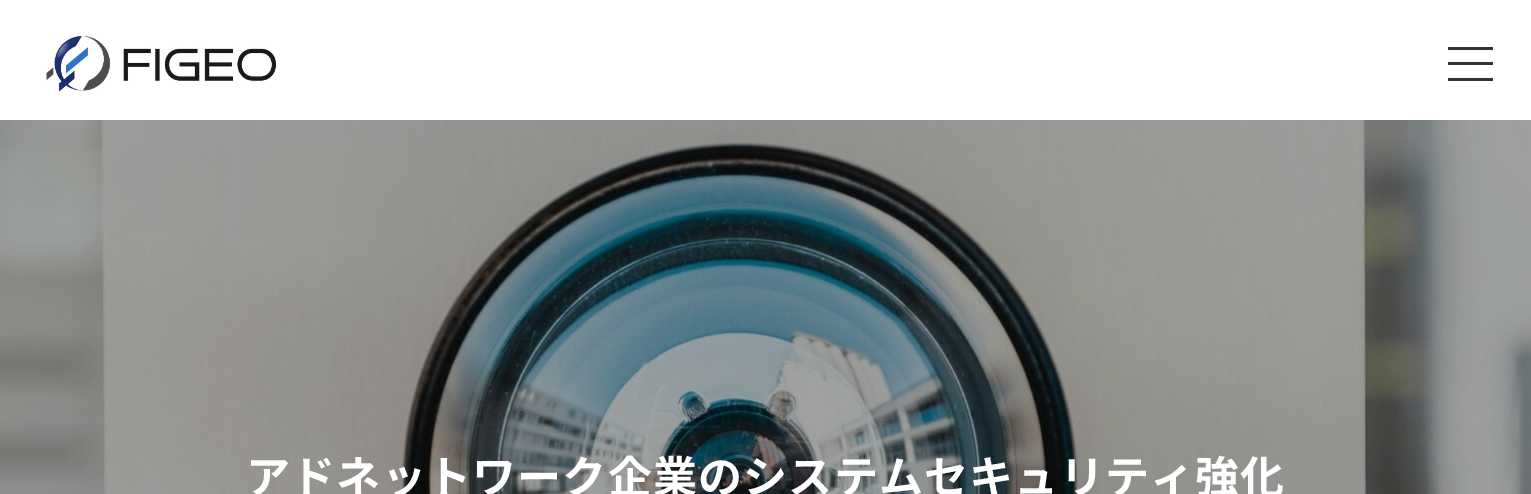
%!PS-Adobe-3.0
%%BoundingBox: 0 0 1531 494
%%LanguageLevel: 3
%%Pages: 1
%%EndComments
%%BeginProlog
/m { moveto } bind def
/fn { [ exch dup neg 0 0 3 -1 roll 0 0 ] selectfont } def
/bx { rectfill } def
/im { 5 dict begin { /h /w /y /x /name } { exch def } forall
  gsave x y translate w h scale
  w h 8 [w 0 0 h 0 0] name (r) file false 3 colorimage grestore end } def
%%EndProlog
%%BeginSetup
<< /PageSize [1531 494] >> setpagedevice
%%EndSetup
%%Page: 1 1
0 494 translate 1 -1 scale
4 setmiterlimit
1 setgray
0 0 1531 494 bx
(image0.raw) 46 35 230 57 im
0.2 setgray
1448 47 45 3 bx
1448 62 45 3 bx
1448 78 45 3 bx
(image1.raw) 0 120 1531 374 im
/NotoSansJP-Bold 44.1 fn
1 setgray
246 493 m 1.1 0 (アドネットワーク企業のシステムセキュリティ強化) ashow
showpage
%%EOF
